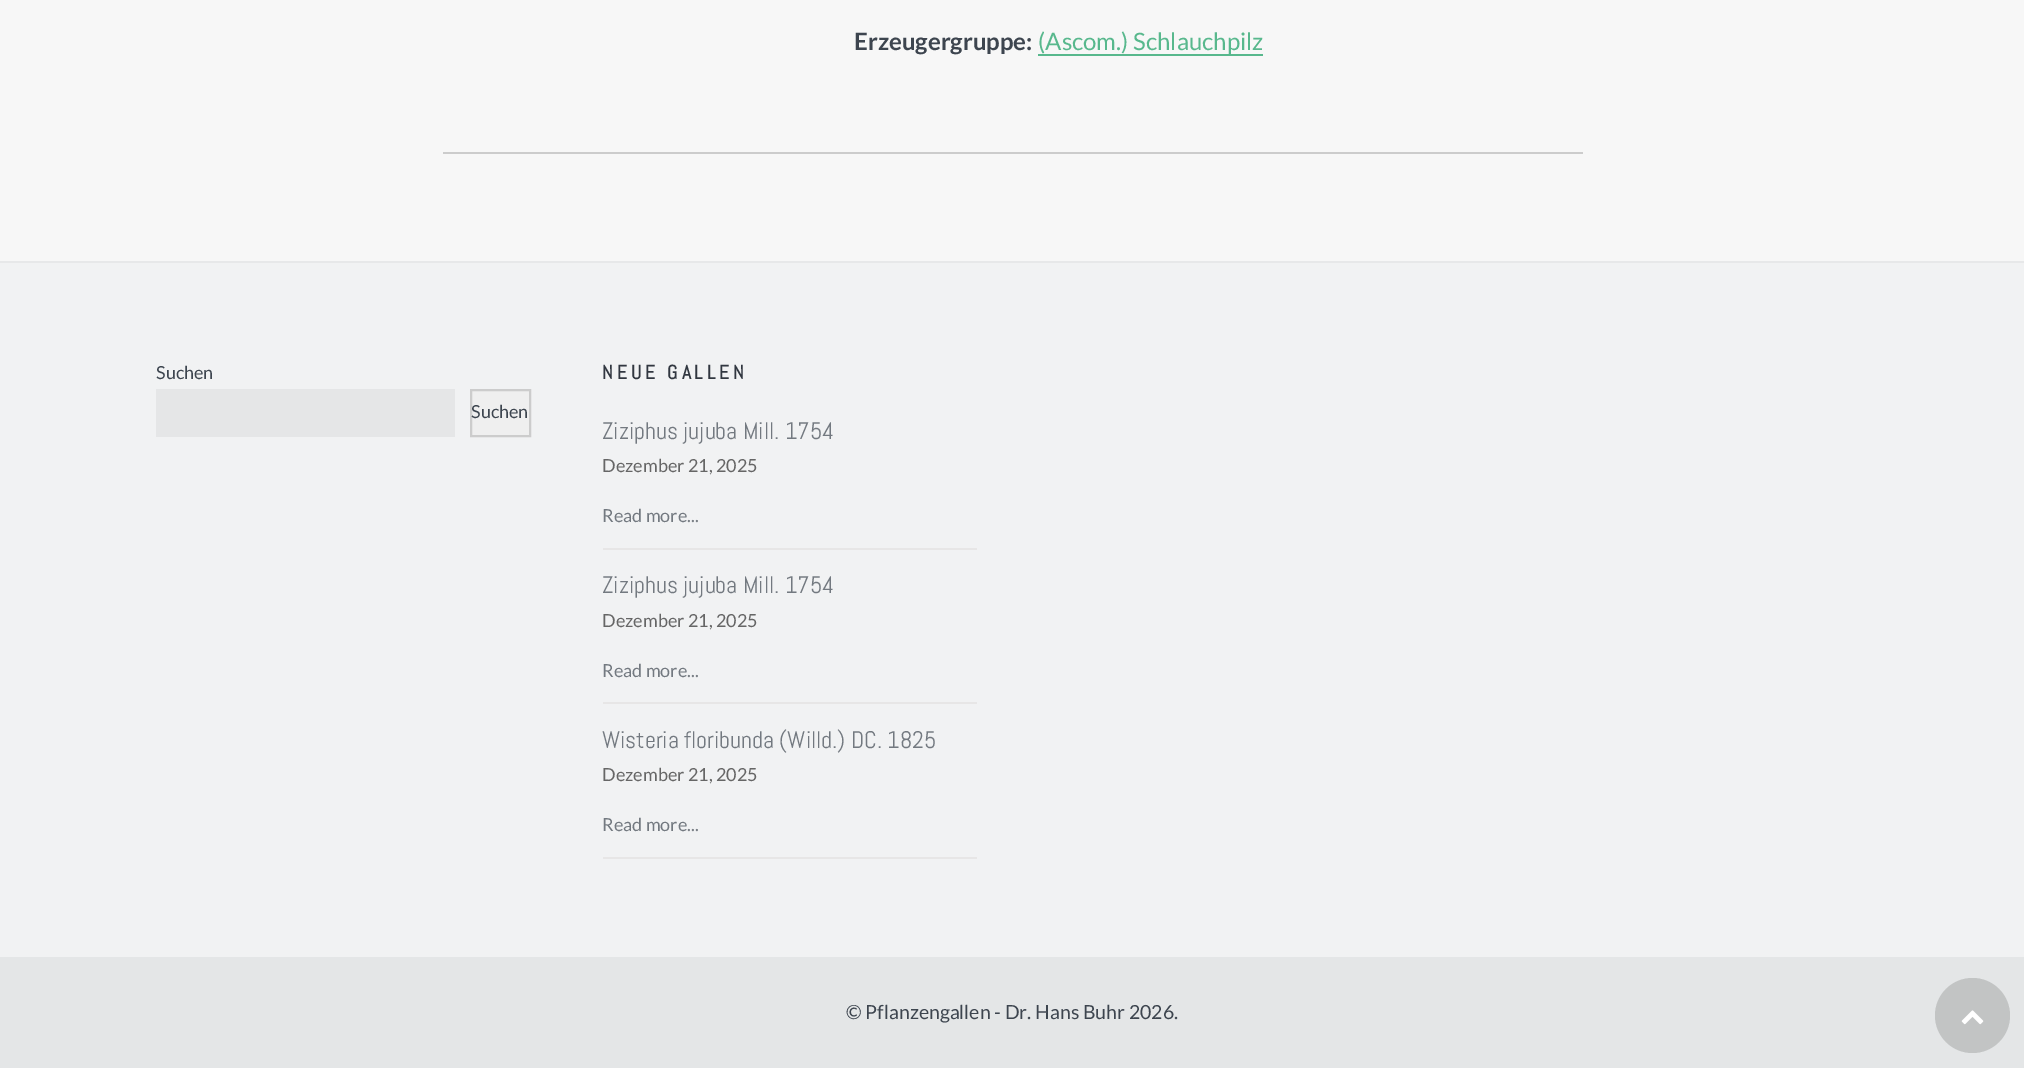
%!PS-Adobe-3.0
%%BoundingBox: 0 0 2024 1068
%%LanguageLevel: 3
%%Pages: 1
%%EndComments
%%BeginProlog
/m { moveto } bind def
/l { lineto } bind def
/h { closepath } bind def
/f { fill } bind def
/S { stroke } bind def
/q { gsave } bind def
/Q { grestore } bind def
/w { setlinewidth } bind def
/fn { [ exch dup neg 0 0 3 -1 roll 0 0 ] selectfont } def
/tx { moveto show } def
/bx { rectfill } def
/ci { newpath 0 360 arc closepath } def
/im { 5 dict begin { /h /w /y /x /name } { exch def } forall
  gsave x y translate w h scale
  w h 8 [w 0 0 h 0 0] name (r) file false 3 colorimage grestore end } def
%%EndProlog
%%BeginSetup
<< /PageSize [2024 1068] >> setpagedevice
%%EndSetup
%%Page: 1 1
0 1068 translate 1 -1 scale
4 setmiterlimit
0.969 setgray
0 0 2024 1068 bx
/Lato-Bold 24 fn
0.239 0.271 0.31 setrgbcolor
(Erzeugergruppe:) 854 50 tx
0.345 0.722 0.553 setrgbcolor
1038 54 225 2 bx
/Lato-Regular 24 fn
(\(Ascom.\) Schlauchpilz) 1038 50 tx
0.8 setgray
443 152 1140 2 bx
0.945 0.949 0.953 setrgbcolor
0 263 2024 694 bx
0.906 0.91 0.914 setrgbcolor
0 261 2024 2 bx
/Lato-Regular 18 fn
0.239 0.271 0.31 setrgbcolor
(Suchen) 156 379 tx
0.898 0.902 0.906 setrgbcolor
156 389 299 48 bx
0.937 setgray
471 390 m 530 390 l 530 436 l 471 436 l h q f Q
0.8 setgray
2 w
S
0.239 0.271 0.31 setrgbcolor
(Suchen) 471 418 tx
/Abel-Bold 19.5 fn
0.192 0.216 0.251 setrgbcolor
602 379 m 3.9 0 (NEUE GALLEN) ashow
0.906 0.902 0.902 setrgbcolor
603 548 374 2 bx
/Abel-Regular 24 fn
0.451 0.475 0.502 setrgbcolor
(Ziziphus jujuba Mill. 1754) 602 439 tx
/Lato-Regular 18 fn
0.4 setgray
(Dezember 21, 2025) 602 472 tx
0.451 0.475 0.502 setrgbcolor
(Read more...) 602 522 tx
0.906 0.902 0.902 setrgbcolor
603 702 374 2 bx
/Abel-Regular 24 fn
0.451 0.475 0.502 setrgbcolor
(Ziziphus jujuba Mill. 1754) 602 593 tx
/Lato-Regular 18 fn
0.4 setgray
(Dezember 21, 2025) 602 627 tx
0.451 0.475 0.502 setrgbcolor
(Read more...) 602 677 tx
0.906 0.902 0.902 setrgbcolor
603 857 374 2 bx
/Abel-Regular 24 fn
0.451 0.475 0.502 setrgbcolor
(Wisteria floribunda \(Willd.\) DC. 1825) 602 748 tx
/Lato-Regular 18 fn
0.4 setgray
(Dezember 21, 2025) 602 781 tx
0.451 0.475 0.502 setrgbcolor
(Read more...) 602 831 tx
0.894 0.902 0.906 setrgbcolor
0 957 2024 111 bx
/Lato-Regular 19.5 fn
0.239 0.271 0.31 setrgbcolor
(© Pflanzengallen - Dr. Hans Buhr 2026.) 846 1019 tx
0.761 0.769 0.769 setrgbcolor
1972.5 1015.5 37.5 ci f
(image0.raw) 1961 1010 23 15 im
showpage
%%EOF
